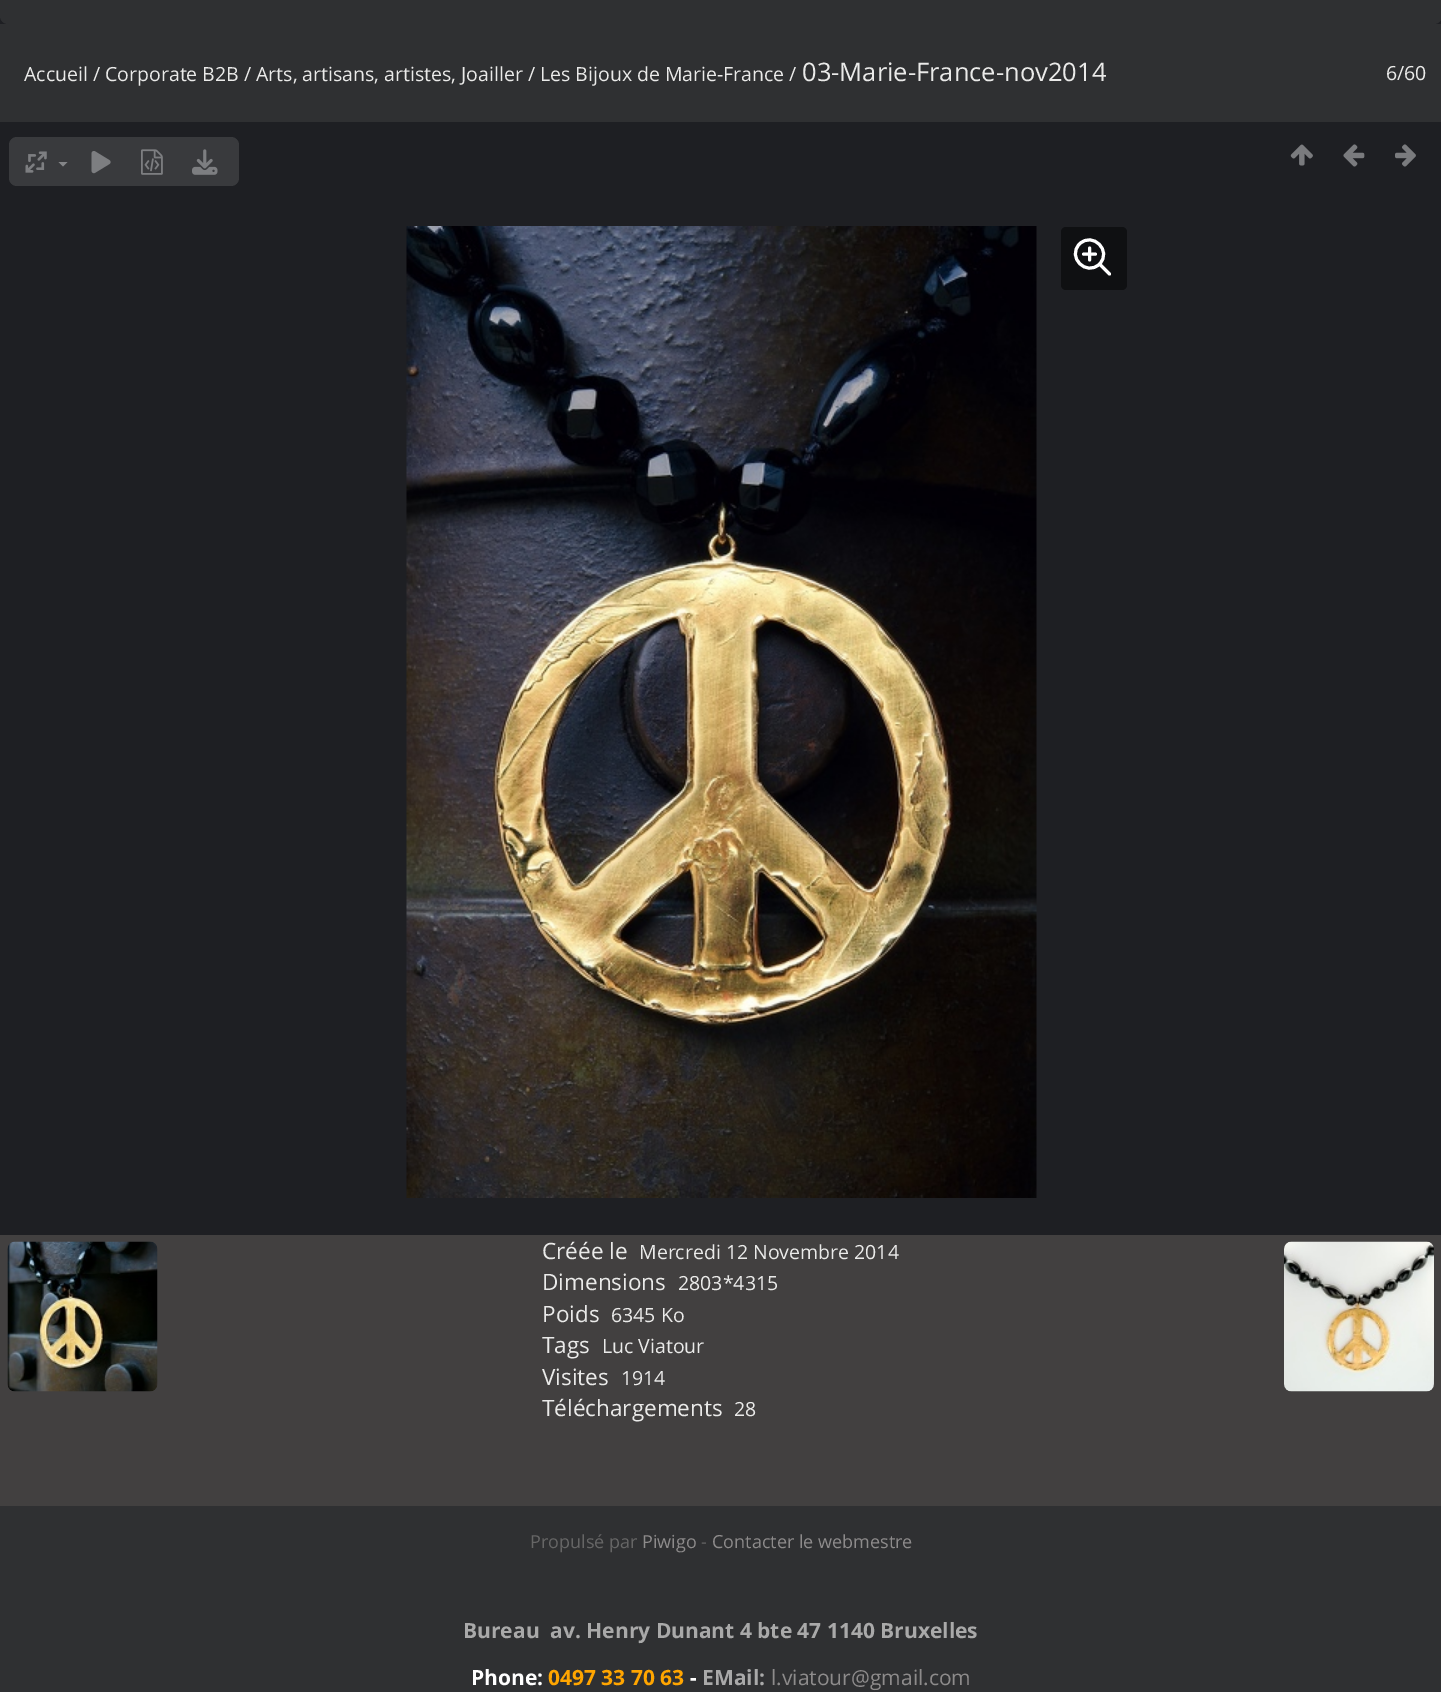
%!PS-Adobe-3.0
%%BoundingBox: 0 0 1441 1692
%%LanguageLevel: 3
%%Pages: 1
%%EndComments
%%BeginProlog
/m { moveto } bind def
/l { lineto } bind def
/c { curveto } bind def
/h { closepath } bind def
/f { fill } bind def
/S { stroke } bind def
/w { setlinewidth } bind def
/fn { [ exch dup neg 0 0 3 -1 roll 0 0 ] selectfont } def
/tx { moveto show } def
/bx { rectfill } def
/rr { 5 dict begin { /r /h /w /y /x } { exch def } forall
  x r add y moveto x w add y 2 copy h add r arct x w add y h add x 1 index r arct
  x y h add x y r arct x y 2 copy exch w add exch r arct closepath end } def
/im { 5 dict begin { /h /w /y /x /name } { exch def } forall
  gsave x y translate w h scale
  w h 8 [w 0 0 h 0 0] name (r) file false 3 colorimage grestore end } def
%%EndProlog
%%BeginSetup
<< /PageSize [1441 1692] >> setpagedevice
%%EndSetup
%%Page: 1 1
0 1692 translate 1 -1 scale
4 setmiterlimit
0.118 0.122 0.137 setrgbcolor
0 0 1441 1692 bx
0.184 0.188 0.196 setrgbcolor
0 -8 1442 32 8 rr f
0 24 1441 98 bx
/OpenSans-Regular 19.5 fn
0.918 0.918 0.914 setrgbcolor
(Accueil / Corporate B2B / Arts, artisans, artistes, Joailler / Les Bijoux de Marie-France /) 24 81 tx
/OpenSans-Regular 25.5 fn
(03-Marie-France-nov2014) 802 81 tx
/OpenSans-Regular 19.5 fn
(6/60) 1386 80 tx
0.224 0.227 0.239 setrgbcolor
9 137 230 49 8 rr f
(image0.raw) 25 151 22 22 im
0.518 0.522 0.533 setrgbcolor
58.5 162 m 67.5 162 l 63 166.5 l h f
(image1.raw) 91 151 20 23 im
(image2.raw) 141 149 22 26 im
(image3.raw) 192 149 26 26 im
(image4.raw) 1290 144 23 22 im
(image5.raw) 1343 144 22 23 im
(image6.raw) 1395 144 21 23 im
(image7.raw) 406 226 631 972 im
0.059 0.063 0.071 setrgbcolor
1061 227 66 63 5 rr f
1 setgray
3 w
1 setlinecap
1 setlinejoin
1109.5 274 m 1099.5 264 l 1099.5 264 m 1112.5 251 1092.5 231 1079.5 244 c 1066.5 257 1086.5 277 1099.5 264 c h 1083.5 254 m 1095.5 254 l 1089.5 248 m 1089.5 260 l S
0.259 0.251 0.251 setrgbcolor
0 1235 1441 271 bx
(image8.raw) 7 1241 151 151 im
(image9.raw) 1284 1241 150 151 im
/OpenSans-Regular 22.5 fn
0.918 0.918 0.914 setrgbcolor
(Créée le) 542 1259 tx
/OpenSans-Regular 19.5 fn
(Mercredi 12 Novembre 2014) 639 1259 tx
/OpenSans-Regular 22.5 fn
(Dimensions) 542 1290 tx
/OpenSans-Regular 19.5 fn
(2803*4315) 678 1290 tx
/OpenSans-Regular 22.5 fn
(Poids) 542 1322 tx
/OpenSans-Regular 19.5 fn
(6345 Ko) 611 1322 tx
/OpenSans-Regular 22.5 fn
(Tags) 542 1353 tx
/OpenSans-Regular 19.5 fn
(Luc Viatour) 602 1353 tx
/OpenSans-Regular 22.5 fn
(Visites) 542 1385 tx
/OpenSans-Regular 19.5 fn
(1914) 621 1385 tx
/OpenSans-Regular 22.5 fn
(Téléchargements) 542 1416 tx
/OpenSans-Regular 19.5 fn
(28) 734 1416 tx
0.184 0.188 0.196 setrgbcolor
0 1506 1441 186 bx
/OpenSans-Regular 18 fn
0.4 setgray
(Propulsé par) 530 1548 tx
0.553 0.545 0.545 setrgbcolor
(Piwigo) 642 1548 tx
0.4 setgray
(-) 701 1548 tx
0.553 0.545 0.545 setrgbcolor
(Contacter le webmestre) 712 1548 tx
/OpenSans-Bold 21 fn
0.663 setgray
(Bureau  av. Henry Dunant 4 bte 47 1140 Bruxelles) 463 1638 tx
1 setgray
(Phone:) 471 1685 tx
1 0.647 0 setrgbcolor
(0497 33 70 63) 548 1685 tx
1 setgray
(-) 690 1685 tx
0.663 setgray
(EMail:) 702 1685 tx
/OpenSans-Regular 21 fn
0.553 0.545 0.545 setrgbcolor
(l.viatour@gmail.com) 771 1685 tx
showpage
%%EOF
